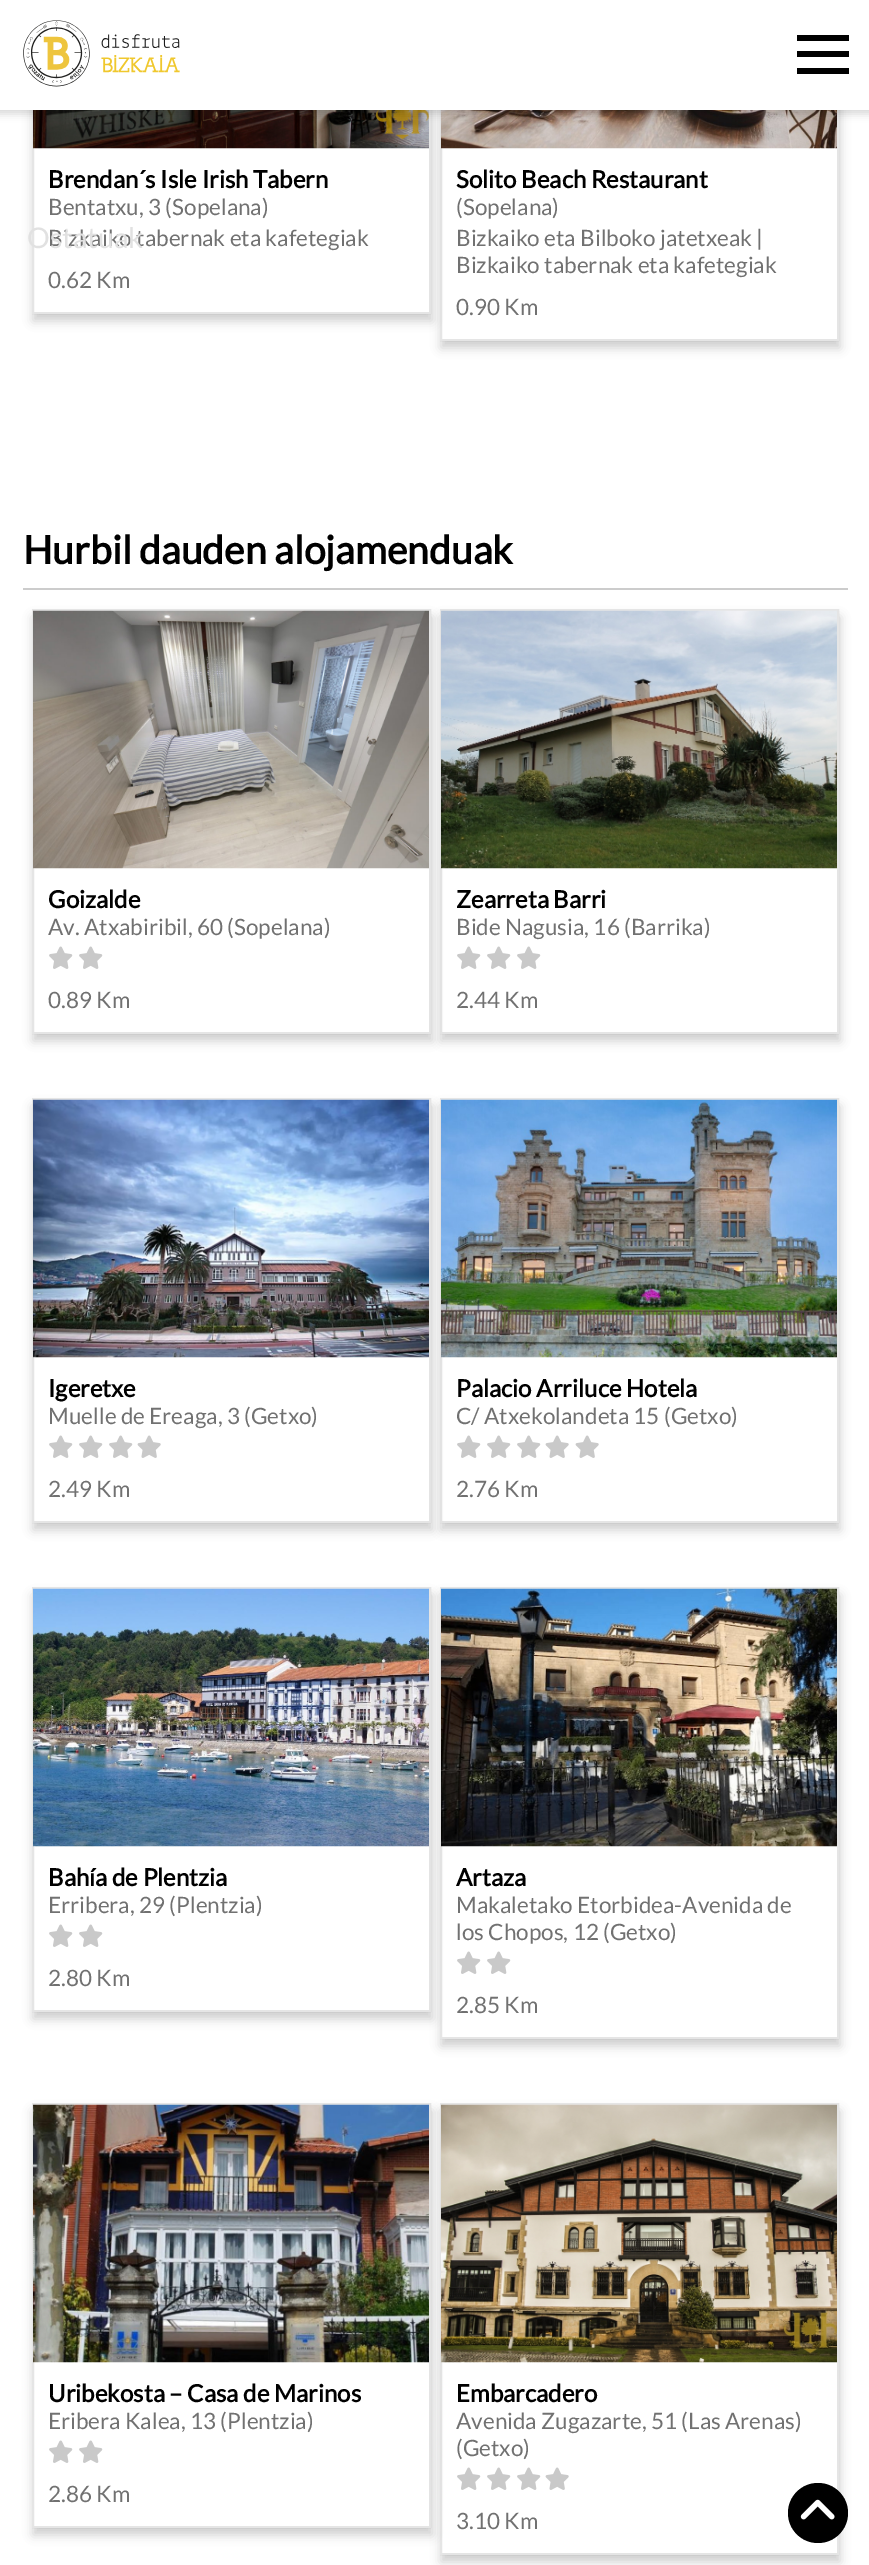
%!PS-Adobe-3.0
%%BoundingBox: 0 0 869 2565
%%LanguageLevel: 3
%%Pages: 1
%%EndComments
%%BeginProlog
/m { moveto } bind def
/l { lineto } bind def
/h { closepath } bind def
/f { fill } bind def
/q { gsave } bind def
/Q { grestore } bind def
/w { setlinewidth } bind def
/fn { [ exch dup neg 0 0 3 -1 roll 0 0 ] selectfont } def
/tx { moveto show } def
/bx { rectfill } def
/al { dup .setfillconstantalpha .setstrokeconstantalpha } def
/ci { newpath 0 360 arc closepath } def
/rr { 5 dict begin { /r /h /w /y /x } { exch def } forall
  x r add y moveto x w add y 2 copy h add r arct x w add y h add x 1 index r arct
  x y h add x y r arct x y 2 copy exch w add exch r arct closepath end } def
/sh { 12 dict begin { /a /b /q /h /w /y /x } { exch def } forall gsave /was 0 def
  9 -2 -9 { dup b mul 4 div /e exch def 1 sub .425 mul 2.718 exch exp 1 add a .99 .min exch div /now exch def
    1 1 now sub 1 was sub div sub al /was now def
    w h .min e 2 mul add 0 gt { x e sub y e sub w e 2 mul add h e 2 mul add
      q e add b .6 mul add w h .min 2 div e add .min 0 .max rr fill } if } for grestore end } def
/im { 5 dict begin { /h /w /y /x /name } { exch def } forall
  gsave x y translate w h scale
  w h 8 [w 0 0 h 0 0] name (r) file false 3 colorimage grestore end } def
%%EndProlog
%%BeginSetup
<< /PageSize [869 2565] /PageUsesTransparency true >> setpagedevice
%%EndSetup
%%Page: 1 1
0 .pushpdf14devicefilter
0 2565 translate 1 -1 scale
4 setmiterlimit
1 setgray
0 0 869 2565 bx
q
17 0 m 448 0 l 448 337 l 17 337 l h 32 -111 m 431 -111 l 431 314 l 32 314 l h eoclip newpath
0 setgray
33 -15 399 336 0 5 0.19 sh
Q
0.1 al
0 setgray
2 w
33 -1 397 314 rectstroke
q
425 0 m 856 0 l 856 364 l 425 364 l h 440 -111 m 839 -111 l 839 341 l 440 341 l h eoclip newpath
1 al
441 -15 399 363 0 5 0.19 sh
Q
1 al
(image0.raw) 33 110 396 39 im
/Lato-Bold 24 fn
(Brendan´s Isle Irish Tabern) 48 188 tx
/Lato-Regular 22.5 fn
0.443 setgray
(Bentatxu, 3 \(Sopelana\)) 48 215 tx
(Bizkaiko tabernak eta kafetegiak) 48 246 tx
(0.62 Km) 48 288 tx
0.1 al
0 setgray
441 -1 397 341 rectstroke
1 al
(image1.raw) 441 110 396 39 im
/Lato-Bold 24 fn
(Solito Beach Restaurant) 456 188 tx
/Lato-Regular 22.5 fn
0.443 setgray
(\(Sopelana\)) 456 215 tx
(Bizkaiko eta Bilboko jatetxeak |) 456 246 tx
(Bizkaiko tabernak eta kafetegiak) 456 273 tx
(0.90 Km) 456 315 tx
0.8 setgray
23 588 825 2 bx
/Lato-Bold 39 fn
0 setgray
(Hurbil dauden alojamenduak) 23 564 tx
q
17 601 m 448 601 l 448 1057 l 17 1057 l h 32 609 m 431 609 l 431 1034 l 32 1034 l h eoclip newpath
33 617 399 424 0 5 0.19 sh
Q
0.1 al
33 610 397 423 rectstroke
q
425 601 m 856 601 l 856 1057 l 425 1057 l h 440 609 m 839 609 l 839 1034 l 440 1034 l h eoclip newpath
1 al
441 617 399 424 0 5 0.19 sh
Q
1 al
(image2.raw) 33 610 396 259 im
/Lato-Bold 24 fn
(Goizalde) 48 908 tx
/Lato-Regular 22.5 fn
0.443 setgray
(Av. Atxabiribil, 60 \(Sopelana\)) 48 935 tx
(image3.raw) 49 946 24 23 im
(image3.raw) 79 946 24 23 im
(0.89 Km) 48 1008 tx
0.1 al
0 setgray
441 610 397 423 rectstroke
1 al
(image4.raw) 441 610 396 259 im
/Lato-Bold 24 fn
(Zearreta Barri) 456 908 tx
/Lato-Regular 22.5 fn
0.443 setgray
(Bide Nagusia, 16 \(Barrika\)) 456 935 tx
(image3.raw) 457 946 24 23 im
(image3.raw) 487 946 24 23 im
(image3.raw) 517 946 24 23 im
(2.44 Km) 456 1008 tx
q
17 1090 m 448 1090 l 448 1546 l 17 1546 l h 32 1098 m 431 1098 l 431 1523 l 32 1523 l h eoclip newpath
0 setgray
33 1106 399 424 0 5 0.19 sh
Q
0.1 al
0 setgray
33 1099 397 423 rectstroke
q
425 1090 m 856 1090 l 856 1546 l 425 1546 l h 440 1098 m 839 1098 l 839 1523 l 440 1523 l h eoclip newpath
1 al
441 1106 399 424 0 5 0.19 sh
Q
1 al
(image5.raw) 33 1099 396 259 im
/Lato-Bold 24 fn
(Igeretxe) 48 1397 tx
/Lato-Regular 22.5 fn
0.443 setgray
(Muelle de Ereaga, 3 \(Getxo\)) 48 1424 tx
(image3.raw) 49 1435 24 23 im
(image3.raw) 79 1435 24 23 im
(image3.raw) 109 1435 24 23 im
(image6.raw) 137 1435 24 23 im
(2.49 Km) 48 1497 tx
0.1 al
0 setgray
441 1099 397 423 rectstroke
1 al
(image7.raw) 441 1099 396 259 im
/Lato-Bold 24 fn
(Palacio Arriluce Hotela) 456 1397 tx
/Lato-Regular 22.5 fn
0.443 setgray
(C/ Atxekolandeta 15 \(Getxo\)) 456 1424 tx
(image3.raw) 457 1435 24 23 im
(image3.raw) 487 1435 24 23 im
(image3.raw) 517 1435 24 23 im
(image6.raw) 545 1435 24 23 im
(image6.raw) 575 1435 24 23 im
(2.76 Km) 456 1497 tx
q
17 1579 m 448 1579 l 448 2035 l 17 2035 l h 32 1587 m 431 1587 l 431 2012 l 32 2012 l h eoclip newpath
0 setgray
33 1595 399 424 0 5 0.19 sh
Q
0.1 al
0 setgray
33 1588 397 423 rectstroke
q
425 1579 m 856 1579 l 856 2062 l 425 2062 l h 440 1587 m 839 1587 l 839 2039 l 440 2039 l h eoclip newpath
1 al
441 1595 399 451 0 5 0.19 sh
Q
1 al
(image8.raw) 33 1588 396 259 im
/Lato-Bold 24 fn
(Bahía de Plentzia) 48 1886 tx
/Lato-Regular 22.5 fn
0.443 setgray
(Erribera, 29 \(Plentzia\)) 48 1913 tx
(image3.raw) 49 1924 24 23 im
(image3.raw) 79 1924 24 23 im
(2.80 Km) 48 1986 tx
0.1 al
0 setgray
441 1588 397 450 rectstroke
1 al
(image9.raw) 441 1588 396 259 im
/Lato-Bold 24 fn
(Artaza) 456 1886 tx
/Lato-Regular 22.5 fn
0.443 setgray
(Makaletako Etorbidea-Avenida de) 456 1913 tx
(los Chopos, 12 \(Getxo\)) 456 1940 tx
(image3.raw) 457 1951 24 23 im
(image3.raw) 487 1951 24 23 im
(2.85 Km) 456 2013 tx
q
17 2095 m 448 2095 l 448 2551 l 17 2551 l h 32 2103 m 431 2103 l 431 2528 l 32 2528 l h eoclip newpath
0 setgray
33 2111 399 424 0 5 0.19 sh
Q
0.1 al
0 setgray
33 2104 397 423 rectstroke
q
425 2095 m 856 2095 l 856 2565 l 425 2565 l h 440 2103 m 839 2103 l 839 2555 l 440 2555 l h eoclip newpath
1 al
441 2111 399 451 0 5 0.19 sh
Q
1 al
(image10.raw) 33 2104 396 259 im
/Lato-Bold 24 fn
(Uribekosta – Casa de Marinos) 48 2402 tx
/Lato-Regular 22.5 fn
0.443 setgray
(Eribera Kalea, 13 \(Plentzia\)) 48 2429 tx
(image3.raw) 49 2440 24 23 im
(image3.raw) 79 2440 24 23 im
(2.86 Km) 48 2502 tx
0.1 al
0 setgray
441 2104 397 450 rectstroke
1 al
(image11.raw) 441 2104 396 259 im
/Lato-Bold 24 fn
(Embarcadero) 456 2402 tx
/Lato-Regular 22.5 fn
0.443 setgray
(Avenida Zugazarte, 51 \(Las Arenas\)) 456 2429 tx
(\(Getxo\)) 456 2456 tx
(image3.raw) 457 2467 24 23 im
(image3.raw) 487 2467 24 23 im
(image3.raw) 517 2467 24 23 im
(image6.raw) 545 2467 24 23 im
(3.10 Km) 456 2529 tx
0 setgray
-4 -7 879 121 0 4 0.15 sh
1 setgray
0 0 869 110 bx
(image12.raw) 23 20 157 67 im
0 setgray
797 35 52 6 bx
797 51 52 6 bx
797 68 52 6 bx
/Lato-Regular 28.5 fn
0.882 setgray
(Ostatuak) 27 248 tx
0 setgray
818 2513 30 ci f
(image13.raw) 800 2499 35 21 im
.poppdf14devicefilter showpage
%%EOF
